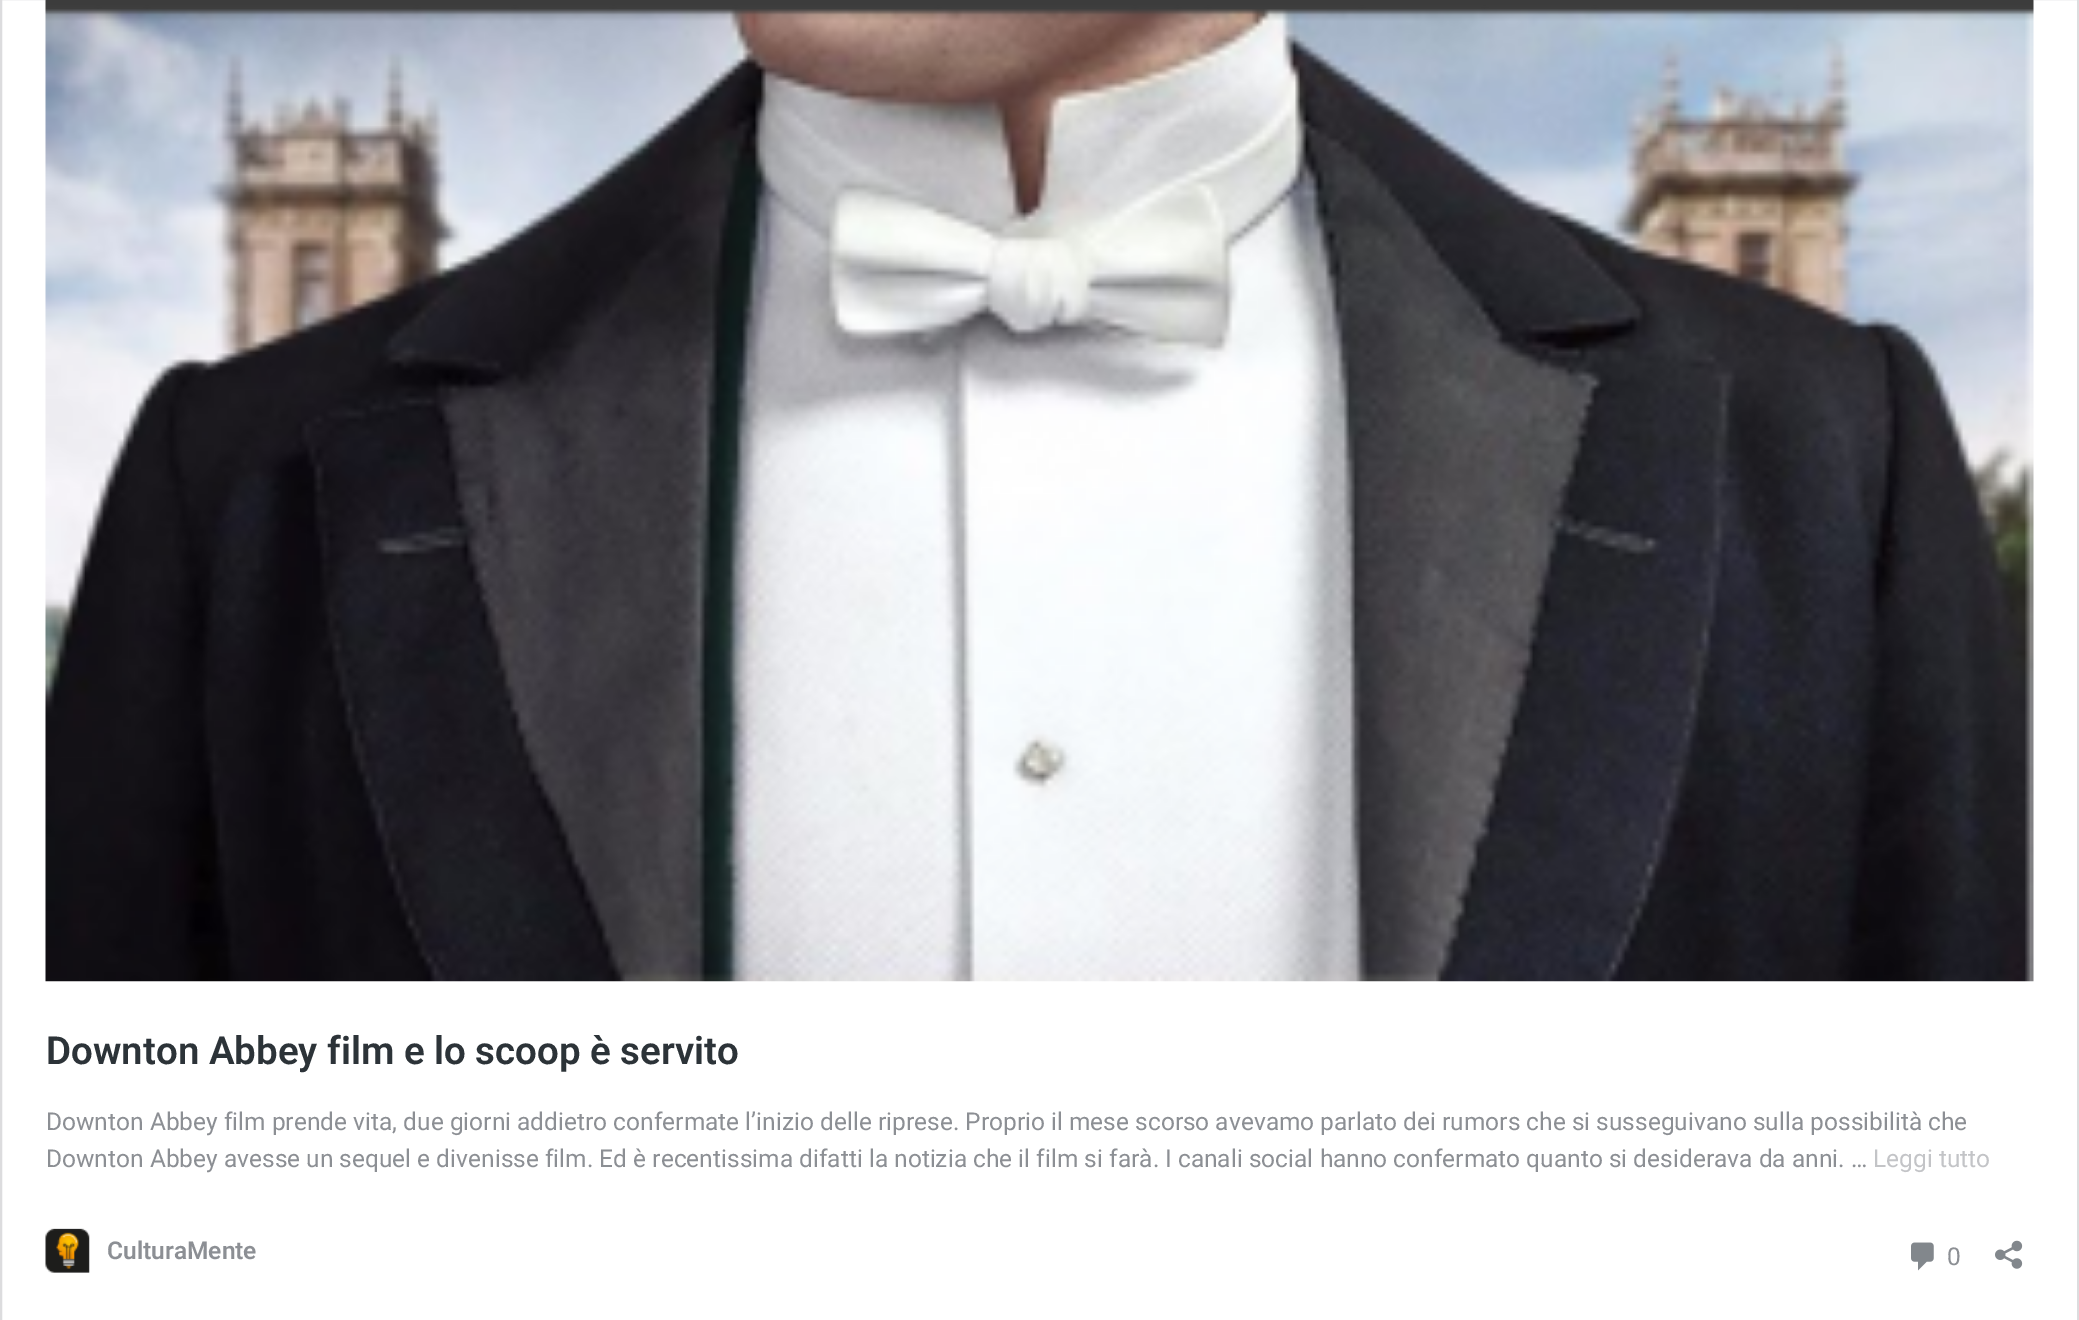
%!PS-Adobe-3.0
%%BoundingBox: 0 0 2079 1320
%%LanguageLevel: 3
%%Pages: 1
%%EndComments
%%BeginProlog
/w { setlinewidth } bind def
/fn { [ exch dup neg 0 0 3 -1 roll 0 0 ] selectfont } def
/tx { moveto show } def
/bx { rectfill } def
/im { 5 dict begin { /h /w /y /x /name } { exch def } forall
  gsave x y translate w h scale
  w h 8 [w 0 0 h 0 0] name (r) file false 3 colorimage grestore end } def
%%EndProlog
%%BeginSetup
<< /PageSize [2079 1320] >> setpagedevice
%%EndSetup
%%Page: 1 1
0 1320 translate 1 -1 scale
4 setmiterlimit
1 setgray
0 0 2079 1320 bx
0.863 0.863 0.871 setrgbcolor
2 w
1 -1 2077 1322 rectstroke
(image0.raw) 45 0 1989 982 im
/Roboto-SemiBold 38.5 fn
0.173 0.2 0.22 setrgbcolor
(Downton Abbey film e lo scoop è servito) 46 1064 tx
/Roboto-Regular 24.5 fn
0.549 0.561 0.58 setrgbcolor
(Downton Abbey film prende vita, due giorni addietro confermate l’inizio delle riprese. Proprio il mese scorso avevamo parlato dei rumors che si susseguivano sulla possibilità che) 46 1130 tx
(Downton Abbey avesse un sequel e divenisse film. Ed è recentissima difatti la notizia che il film si farà. I canali social hanno confermato quanto si desiderava da anni. …) 46 1167 tx
0.765 0.769 0.78 setrgbcolor
(Leggi tutto) 1873 1167 tx
(image1.raw) 45 1228 45 45 im
/Roboto-SemiBold 24.5 fn
0.549 0.561 0.58 setrgbcolor
(CulturaMente) 107 1259 tx
(image2.raw) 1911 1242 23 29 im
/Roboto-Regular 24.5 fn
(0) 1947 1265 tx
(image3.raw) 1995 1240 28 29 im
showpage
%%EOF
